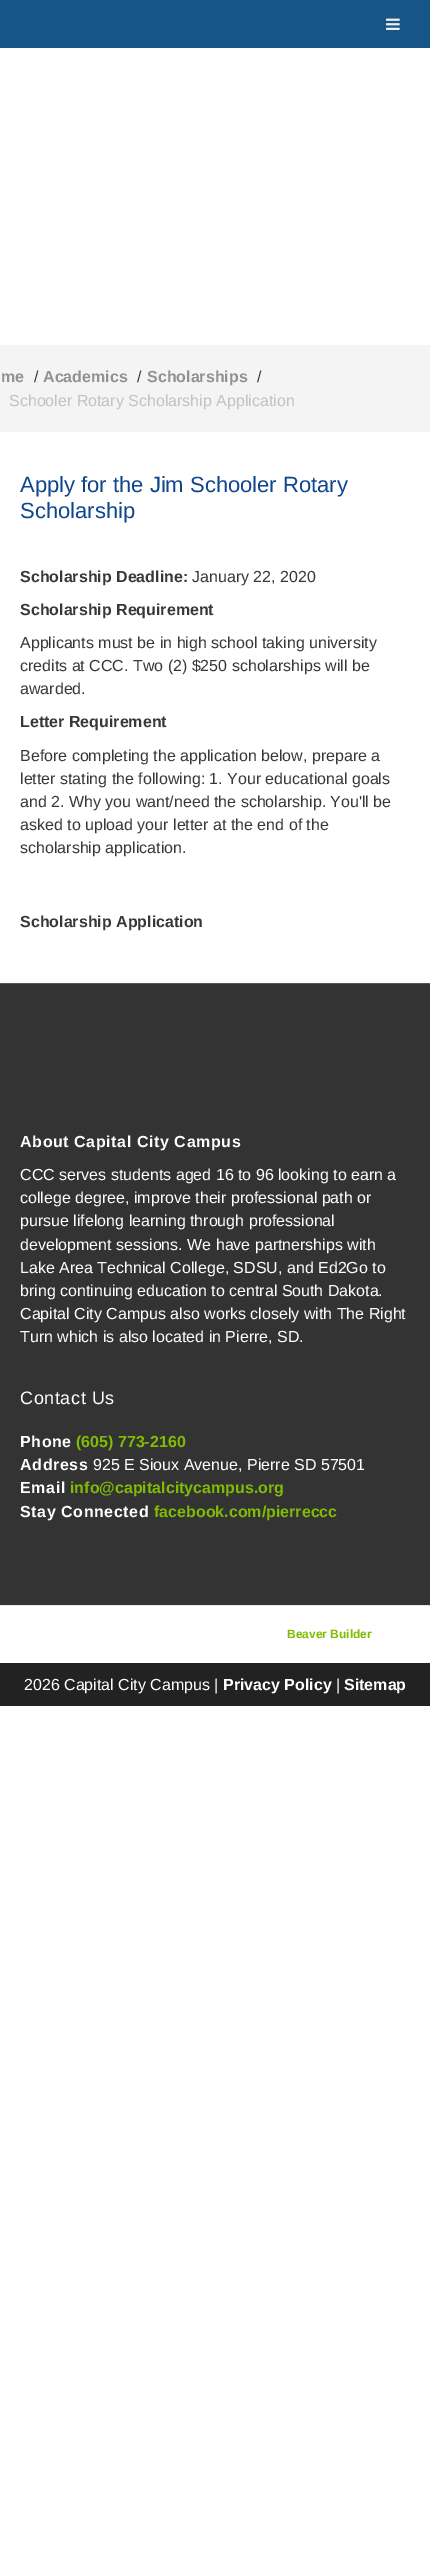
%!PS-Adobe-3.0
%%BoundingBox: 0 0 430 2560
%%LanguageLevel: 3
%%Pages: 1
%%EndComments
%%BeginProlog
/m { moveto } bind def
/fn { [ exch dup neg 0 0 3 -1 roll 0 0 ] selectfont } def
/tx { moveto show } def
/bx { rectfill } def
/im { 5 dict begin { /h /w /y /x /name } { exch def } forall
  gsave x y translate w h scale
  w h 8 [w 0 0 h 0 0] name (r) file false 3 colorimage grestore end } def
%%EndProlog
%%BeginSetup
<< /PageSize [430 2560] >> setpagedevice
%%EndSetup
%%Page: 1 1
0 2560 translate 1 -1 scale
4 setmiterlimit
1 setgray
0 0 430 2560 bx
0.09 0.329 0.529 setrgbcolor
0 0 430 48 bx
(image0.raw) 386 18 14 12 im
0.957 setgray
0 345 430 87 bx
/LiberationSans-Bold 16 fn
0.569 setgray
(me) 1 382 tx
/LiberationSans-Regular 16 fn
0.212 0.227 0.212 setrgbcolor
(/) 34 382 tx
/LiberationSans-Bold 16 fn
0.569 setgray
(Academics) 43 382 tx
/LiberationSans-Regular 16 fn
0.212 0.227 0.212 setrgbcolor
(/) 137 382 tx
/LiberationSans-Bold 16 fn
0.569 setgray
(Scholarships) 147 382 tx
/LiberationSans-Regular 16 fn
0.212 0.227 0.212 setrgbcolor
(/) 257 382 tx
0.761 setgray
(Schooler Rotary Scholarship Application) 9 406 tx
/LiberationSans-Regular 22 fn
0.059 0.271 0.557 setrgbcolor
(Apply for the Jim Schooler Rotary) 20 492 tx
(Scholarship) 20 518 tx
/LiberationSans-Bold 16 fn
0.212 0.227 0.212 setrgbcolor
(Scholarship Deadline:) 20 582 tx
/LiberationSans-Regular 16 fn
(January 22, 2020) 192 582 tx
/LiberationSans-Bold 16 fn
(Scholarship Requirement) 20 615 tx
/LiberationSans-Regular 16 fn
(Applicants must be in high school taking university) 20 648 tx
(credits at CCC. Two \(2\) $250 scholarships will be) 20 671 tx
(awarded.) 20 694 tx
/LiberationSans-Bold 16 fn
(Letter Requirement) 20 727 tx
/LiberationSans-Regular 16 fn
(Before completing the application below, prepare a) 20 761 tx
(letter stating the following: 1. Your educational goals) 20 784 tx
(and 2. Why you want/need the scholarship. You'll be) 20 807 tx
(asked to upload your letter at the end of the) 20 830 tx
(scholarship application.) 20 853 tx
/LiberationSans-Bold 16 fn
(Scholarship Application) 20 927 tx
0.2 setgray
0 984 430 621 bx
0.329 setgray
0 983 430 1 bx
1 setgray
20 1147 m 0.6 0 (About Capital City Campus) ashow
/LiberationSans-Regular 16 fn
(CCC serves students aged 16 to 96 looking to earn a) 20 1180 tx
(college degree, improve their professional path or) 20 1203 tx
(pursue lifelong learning through professional) 20 1226 tx
(development sessions. We have partnerships with) 20 1250 tx
(Lake Area Technical College, SDSU, and Ed2Go to) 20 1273 tx
(bring continuing education to central South Dakota.) 20 1296 tx
(Capital City Campus also works closely with The Right) 20 1319 tx
(Turn which is also located in Pierre, SD.) 20 1342 tx
/LiberationSans-Regular 18 fn
20 1404 m 0.6 0 (Contact Us) ashow
/LiberationSans-Bold 16 fn
20 1447 m 0.6 0 (Phone) ashow
0.498 0.737 0.012 setrgbcolor
(\(605\) 773-2160) 76 1447 tx
1 setgray
20 1470 m 0.6 0 (Address) ashow
/LiberationSans-Regular 16 fn
(925 E Sioux Avenue, Pierre SD 57501) 93 1470 tx
/LiberationSans-Bold 16 fn
20 1493 m 0.6 0 (Email) ashow
0.498 0.737 0.012 setrgbcolor
(info@capitalcitycampus.org) 70 1493 tx
1 setgray
20 1517 m 0.6 0 (Stay Connected) ashow
0.498 0.737 0.012 setrgbcolor
(facebook.com/pierreccc) 154 1517 tx
0.902 setgray
0 1605 430 1 bx
/LiberationSans-Bold 12 fn
0.498 0.737 0.012 setrgbcolor
(Beaver Builder) 287 1638 tx
0.133 setgray
0 1663 430 43 bx
/LiberationSans-Regular 16 fn
1 setgray
(2026 Capital City Campus |) 24 1690 tx
/LiberationSans-Bold 16 fn
(Privacy Policy) 223 1690 tx
/LiberationSans-Regular 16 fn
(|) 336 1690 tx
/LiberationSans-Bold 16 fn
(Sitemap) 344 1690 tx
showpage
%%EOF
